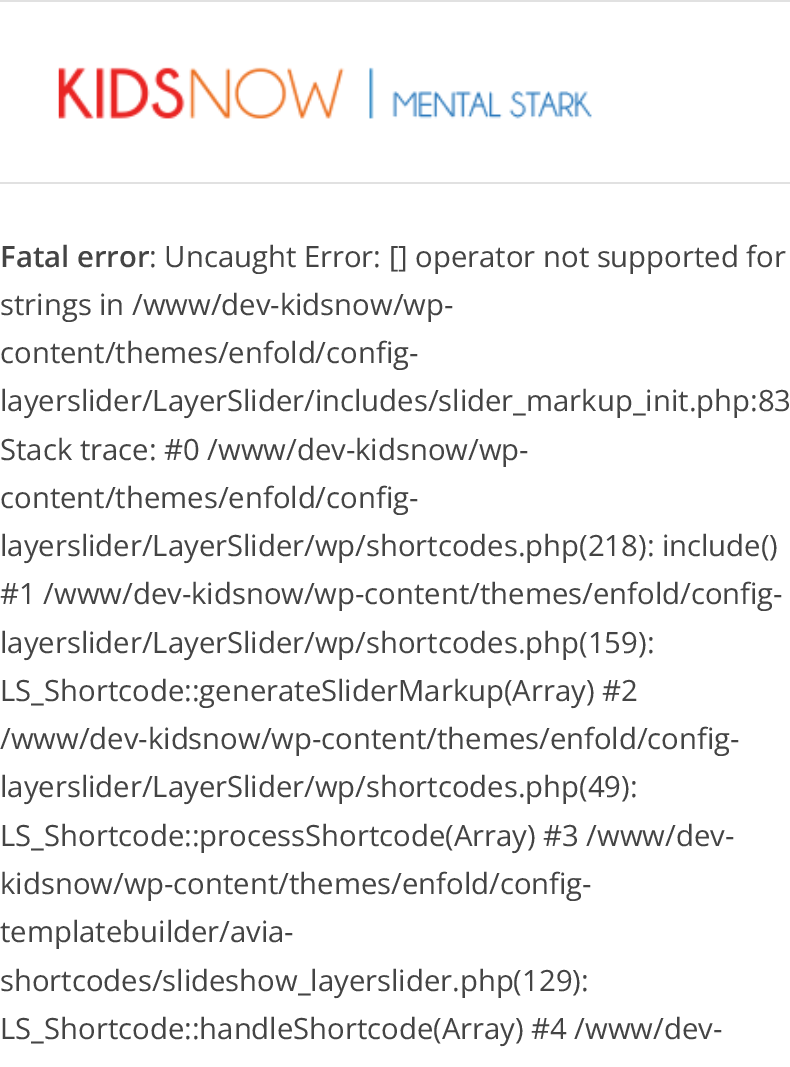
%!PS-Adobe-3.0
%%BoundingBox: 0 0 790 1067
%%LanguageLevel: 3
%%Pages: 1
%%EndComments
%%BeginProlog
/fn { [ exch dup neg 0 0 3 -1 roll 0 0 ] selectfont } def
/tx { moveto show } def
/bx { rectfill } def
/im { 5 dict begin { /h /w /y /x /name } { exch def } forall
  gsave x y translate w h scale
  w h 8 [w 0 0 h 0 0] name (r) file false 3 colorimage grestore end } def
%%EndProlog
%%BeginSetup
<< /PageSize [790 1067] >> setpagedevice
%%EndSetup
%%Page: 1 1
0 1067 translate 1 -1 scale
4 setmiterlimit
1 setgray
0 0 790 1067 bx
0.882 setgray
0 0 790 2 bx
0 182 790 2 bx
(image0.raw) 58 67 534 52 im
/OpenSans-SemiBold 29.25 fn
0.267 setgray
(Fatal error) 0 267 tx
/OpenSans-Regular 29.25 fn
(: Uncaught Error: [] operator not supported for) 149 267 tx
(strings in /www/dev-kidsnow/wp-) 0 315 tx
(content/themes/enfold/config-) 0 363 tx
(layerslider/LayerSlider/includes/slider_markup_init.php:83) 0 411 tx
(Stack trace: #0 /www/dev-kidsnow/wp-) 0 460 tx
(content/themes/enfold/config-) 0 508 tx
(layerslider/LayerSlider/wp/shortcodes.php\(218\): include\(\)) 0 556 tx
(#1 /www/dev-kidsnow/wp-content/themes/enfold/config-) 0 604 tx
(layerslider/LayerSlider/wp/shortcodes.php\(159\):) 0 653 tx
(LS_Shortcode::generateSliderMarkup\(Array\) #2) 0 701 tx
(/www/dev-kidsnow/wp-content/themes/enfold/config-) 0 749 tx
(layerslider/LayerSlider/wp/shortcodes.php\(49\):) 0 797 tx
(LS_Shortcode::processShortcode\(Array\) #3 /www/dev-) 0 846 tx
(kidsnow/wp-content/themes/enfold/config-) 0 894 tx
(templatebuilder/avia-) 0 942 tx
(shortcodes/slideshow_layerslider.php\(129\):) 0 991 tx
(LS_Shortcode::handleShortcode\(Array\) #4 /www/dev-) 0 1039 tx
showpage
%%EOF
